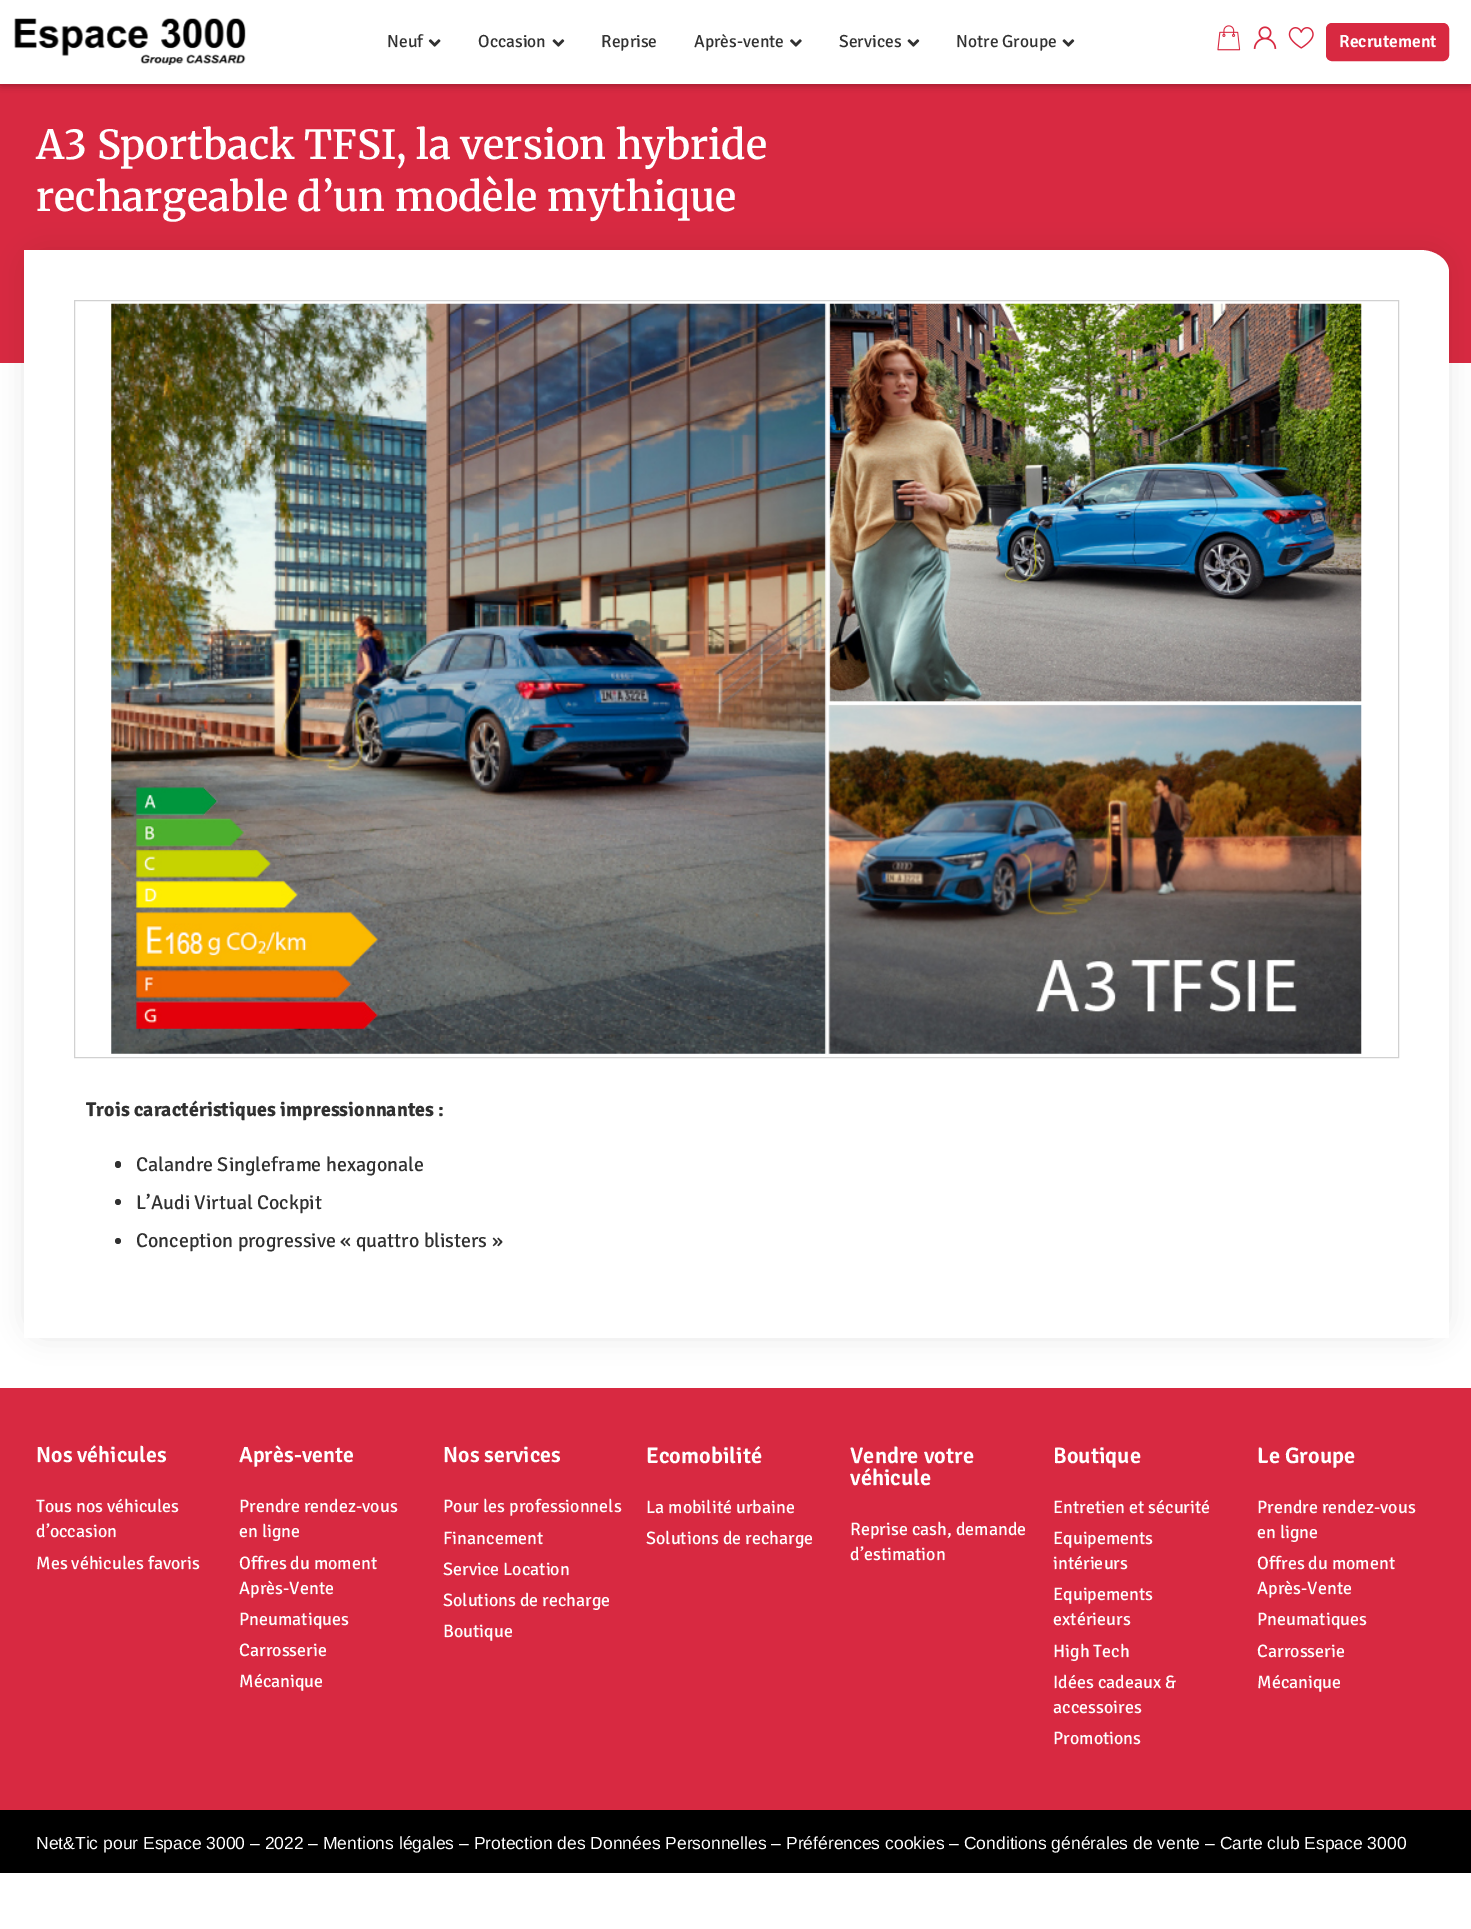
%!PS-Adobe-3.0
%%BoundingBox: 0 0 1471 1929
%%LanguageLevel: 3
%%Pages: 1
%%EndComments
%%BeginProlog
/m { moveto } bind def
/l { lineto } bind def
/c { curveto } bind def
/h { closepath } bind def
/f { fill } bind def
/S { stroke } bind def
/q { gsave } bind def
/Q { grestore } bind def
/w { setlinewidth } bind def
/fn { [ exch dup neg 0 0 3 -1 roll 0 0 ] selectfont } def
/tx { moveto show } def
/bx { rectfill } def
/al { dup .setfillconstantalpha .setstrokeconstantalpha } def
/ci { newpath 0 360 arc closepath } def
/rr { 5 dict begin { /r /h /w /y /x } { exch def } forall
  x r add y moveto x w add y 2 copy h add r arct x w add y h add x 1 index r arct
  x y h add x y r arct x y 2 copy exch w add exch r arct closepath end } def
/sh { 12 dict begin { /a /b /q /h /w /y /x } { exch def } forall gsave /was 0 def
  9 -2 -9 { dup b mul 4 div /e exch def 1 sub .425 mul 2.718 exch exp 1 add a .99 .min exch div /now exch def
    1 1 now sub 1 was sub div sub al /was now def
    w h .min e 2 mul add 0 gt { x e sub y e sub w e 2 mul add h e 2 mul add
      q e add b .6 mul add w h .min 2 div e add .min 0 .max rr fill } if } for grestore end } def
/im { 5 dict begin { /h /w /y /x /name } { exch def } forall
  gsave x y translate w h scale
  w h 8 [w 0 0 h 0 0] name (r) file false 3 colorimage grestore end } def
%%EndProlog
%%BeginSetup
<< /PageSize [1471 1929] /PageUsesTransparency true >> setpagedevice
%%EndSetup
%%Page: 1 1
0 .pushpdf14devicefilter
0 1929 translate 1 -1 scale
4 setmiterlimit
1 setgray
0 0 1471 1929 bx
0.847 0.161 0.255 setrgbcolor
0 84 1471 279 bx
0 setgray
1 1 1469 82 0 4.5 0.5 sh
1 setgray
0 0 1471 84 bx
(image0.raw) 14 18 232 47 im
/Signika-Regular 17.5 fn
0.192 setgray
(Neuf) 387 47 tx
(image1.raw) 428 39 13 8 im
(Occasion) 478 47 tx
(image2.raw) 552 39 13 8 im
(Reprise) 601 47 tx
(Après-vente) 694 47 tx
(image3.raw) 790 39 12 8 im
(Services) 839 47 tx
(image2.raw) 907 39 13 8 im
(Notre Groupe) 956 47 tx
(image2.raw) 1062 39 13 8 im
(image4.raw) 1217 25 24 26 im
(image5.raw) 1253 26 24 23 im
(image6.raw) 1288 27 26 22 im
0.847 0.161 0.255 setrgbcolor
1327.5 24.5 120 35 4.5 rr q f Q
3 w
S
/Signika-SemiBold 17.5 fn
1 setgray
(Recrutement) 1339 47 tx
/Merriweather-SemiBold 40 fn
(A3 Sportback TFSI, la version hybride) 36 159 tx
(rechargeable d’un modèle mythique) 36 211 tx
0 setgray
24 250 1425 1088 21 12.5 0.09 sh
1 setgray
24 250 m 1420 250 l 1436 250 1449 260 1449 272 c 1449 1338 l 24 1338 l h f
0.82 setgray
1 w
74.5 300.5 1324 757 rectstroke
(image7.raw) 111 303 1251 751 im
/Signika-Bold 20 fn
0.192 setgray
(Trois caractéristiques impressionnantes :) 86 1116 tx
115 1161 6 7 3 rr f
/Signika-Regular 20 fn
(Calandre Singleframe hexagonale) 136 1171 tx
118 1202 3 ci f
(L’Audi Virtual Cockpit) 136 1209 tx
118 1241 3 ci f
(Conception progressive « quattro blisters ») 136 1247 tx
0.847 0.161 0.255 setrgbcolor
0 1388 1471 422 bx
/Signika-SemiBold 22 fn
1 setgray
(Nos véhicules) 36 1462 tx
/Signika-Regular 18 fn
(Tous nos véhicules) 36 1512 tx
(d’occasion) 36 1537 tx
(Mes véhicules favoris) 36 1569 tx
/Signika-SemiBold 22 fn
(Après-vente) 239 1462 tx
/Signika-Regular 18 fn
(Prendre rendez-vous) 239 1512 tx
(en ligne) 239 1537 tx
(Offres du moment) 239 1569 tx
(Après-Vente) 239 1594 tx
(Pneumatiques) 239 1625 tx
(Carrosserie) 239 1656 tx
(Mécanique) 239 1687 tx
/Signika-SemiBold 22 fn
(Nos services) 443 1462 tx
/Signika-Regular 18 fn
(Pour les professionnels) 443 1512 tx
(Financement) 443 1544 tx
(Service Location) 443 1575 tx
(Solutions de recharge) 443 1606 tx
(Boutique) 443 1637 tx
/Signika-SemiBold 22.5 fn
(Ecomobilité) 646 1463 tx
/Signika-Regular 18 fn
(La mobilité urbaine) 646 1513 tx
(Solutions de recharge) 646 1544 tx
/Signika-SemiBold 22.5 fn
(Vendre votre) 850 1463 tx
(véhicule) 850 1485 tx
/Signika-Regular 18 fn
(Reprise cash, demande) 850 1535 tx
(d’estimation) 850 1560 tx
/Signika-SemiBold 22.5 fn
(Boutique) 1053 1463 tx
/Signika-Regular 18 fn
(Entretien et sécurité) 1053 1513 tx
(Equipements) 1053 1544 tx
(intérieurs) 1053 1569 tx
(Equipements) 1053 1600 tx
(extérieurs) 1053 1625 tx
(High Tech) 1053 1657 tx
(Idées cadeaux &) 1053 1688 tx
(accessoires) 1053 1713 tx
(Promotions) 1053 1744 tx
/Signika-SemiBold 22.5 fn
(Le Groupe) 1257 1463 tx
/Signika-Regular 18 fn
(Prendre rendez-vous) 1257 1513 tx
(en ligne) 1257 1538 tx
(Offres du moment) 1257 1569 tx
(Après-Vente) 1257 1594 tx
(Pneumatiques) 1257 1625 tx
(Carrosserie) 1257 1657 tx
(Mécanique) 1257 1688 tx
0 setgray
0 1810 1471 63 bx
/LiberationSans-Regular 17.5 fn
1 setgray
(Net&Tic pour Espace 3000 – 2022 – Mentions légales – Protection des Données Personnelles – Préférences cookies – Conditions générales de vente – Carte club Espace 3000) 36 1849 tx
.poppdf14devicefilter showpage
%%EOF
